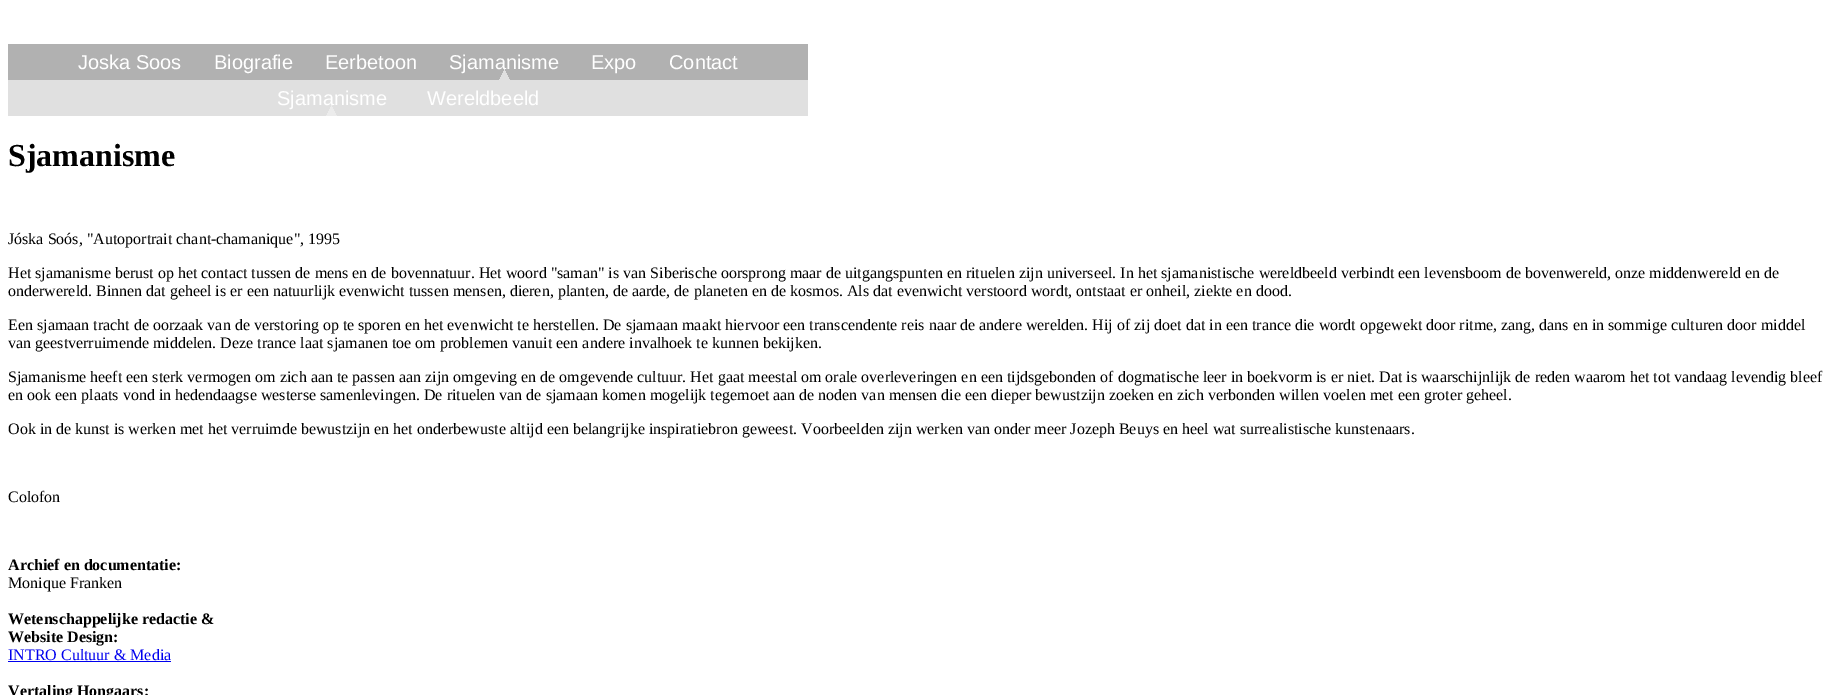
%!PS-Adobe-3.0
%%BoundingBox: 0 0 1840 695
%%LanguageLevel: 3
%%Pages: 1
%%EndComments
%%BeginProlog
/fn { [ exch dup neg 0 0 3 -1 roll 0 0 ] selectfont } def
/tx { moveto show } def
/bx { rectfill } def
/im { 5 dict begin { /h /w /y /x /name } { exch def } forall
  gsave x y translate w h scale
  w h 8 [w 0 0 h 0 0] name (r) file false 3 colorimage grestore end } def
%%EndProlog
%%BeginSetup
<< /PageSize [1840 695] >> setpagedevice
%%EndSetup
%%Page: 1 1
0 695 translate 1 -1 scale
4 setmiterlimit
1 setgray
0 0 1840 695 bx
0.694 setgray
8 44 800 36 bx
/LiberationSans-Regular 20 fn
1 setgray
(Joska Soos) 78 69 tx
(Biografie) 214 69 tx
(image0.raw) 499 69 11 11 im
(Sjamanisme) 449 69 tx
0.878 setgray
8 80 800 36 bx
(image1.raw) 326 105 11 11 im
1 setgray
(Sjamanisme) 277 105 tx
(Wereldbeeld) 427 105 tx
(Eerbetoon) 325 69 tx
(Expo) 591 69 tx
(Contact) 669 69 tx
/LiberationSerif-Bold 32 fn
0 setgray
(Sjamanisme) 8 166 tx
/LiberationSerif-Regular 16 fn
(Jóska Soós, "Autoportrait chant-chamanique", 1995) 8 244 tx
(Het sjamanisme berust op het contact tussen de mens en de bovennatuur. Het woord "saman" is van Siberische oorsprong maar de uitgangspunten en rituelen zijn universeel. In het sjamanistische wereldbeeld verbindt een levensboom de bovenwereld, onze middenwereld en de) 8 278 tx
(onderwereld. Binnen dat geheel is er een natuurlijk evenwicht tussen mensen, dieren, planten, de aarde, de planeten en de kosmos. Als dat evenwicht verstoord wordt, ontstaat er onheil, ziekte en dood.) 8 296 tx
(Een sjamaan tracht de oorzaak van de verstoring op te sporen en het evenwicht te herstellen. De sjamaan maakt hiervoor een transcendente reis naar de andere werelden. Hij of zij doet dat in een trance die wordt opgewekt door ritme, zang, dans en in sommige culturen door middel) 8 330 tx
(van geestverruimende middelen. Deze trance laat sjamanen toe om problemen vanuit een andere invalhoek te kunnen bekijken.) 8 348 tx
(Sjamanisme heeft een sterk vermogen om zich aan te passen aan zijn omgeving en de omgevende cultuur. Het gaat meestal om orale overleveringen en een tijdsgebonden of dogmatische leer in boekvorm is er niet. Dat is waarschijnlijk de reden waarom het tot vandaag levendig bleef) 8 382 tx
(en ook een plaats vond in hedendaagse westerse samenlevingen. De rituelen van de sjamaan komen mogelijk tegemoet aan de noden van mensen die een dieper bewustzijn zoeken en zich verbonden willen voelen met een groter geheel.) 8 400 tx
(Ook in de kunst is werken met het verruimde bewustzijn en het onderbewuste altijd een belangrijke inspiratiebron geweest. Voorbeelden zijn werken van onder meer Jozeph Beuys en heel wat surrealistische kunstenaars.) 8 434 tx
(Colofon) 8 502 tx
/LiberationSerif-Bold 16 fn
(Archief en documentatie:) 8 570 tx
/LiberationSerif-Regular 16 fn
(Monique Franken) 8 588 tx
/LiberationSerif-Bold 16 fn
(Wetenschappelijke redactie &) 8 624 tx
(Website Design:) 8 642 tx
/LiberationSerif-Regular 16 fn
0 0 0.933 setrgbcolor
(INTRO Cultuur & Media) 8 660 tx
8 661 163 1 bx
/LiberationSerif-Bold 16 fn
0 setgray
(Vertaling Hongaars:) 8 696 tx
showpage
%%EOF
